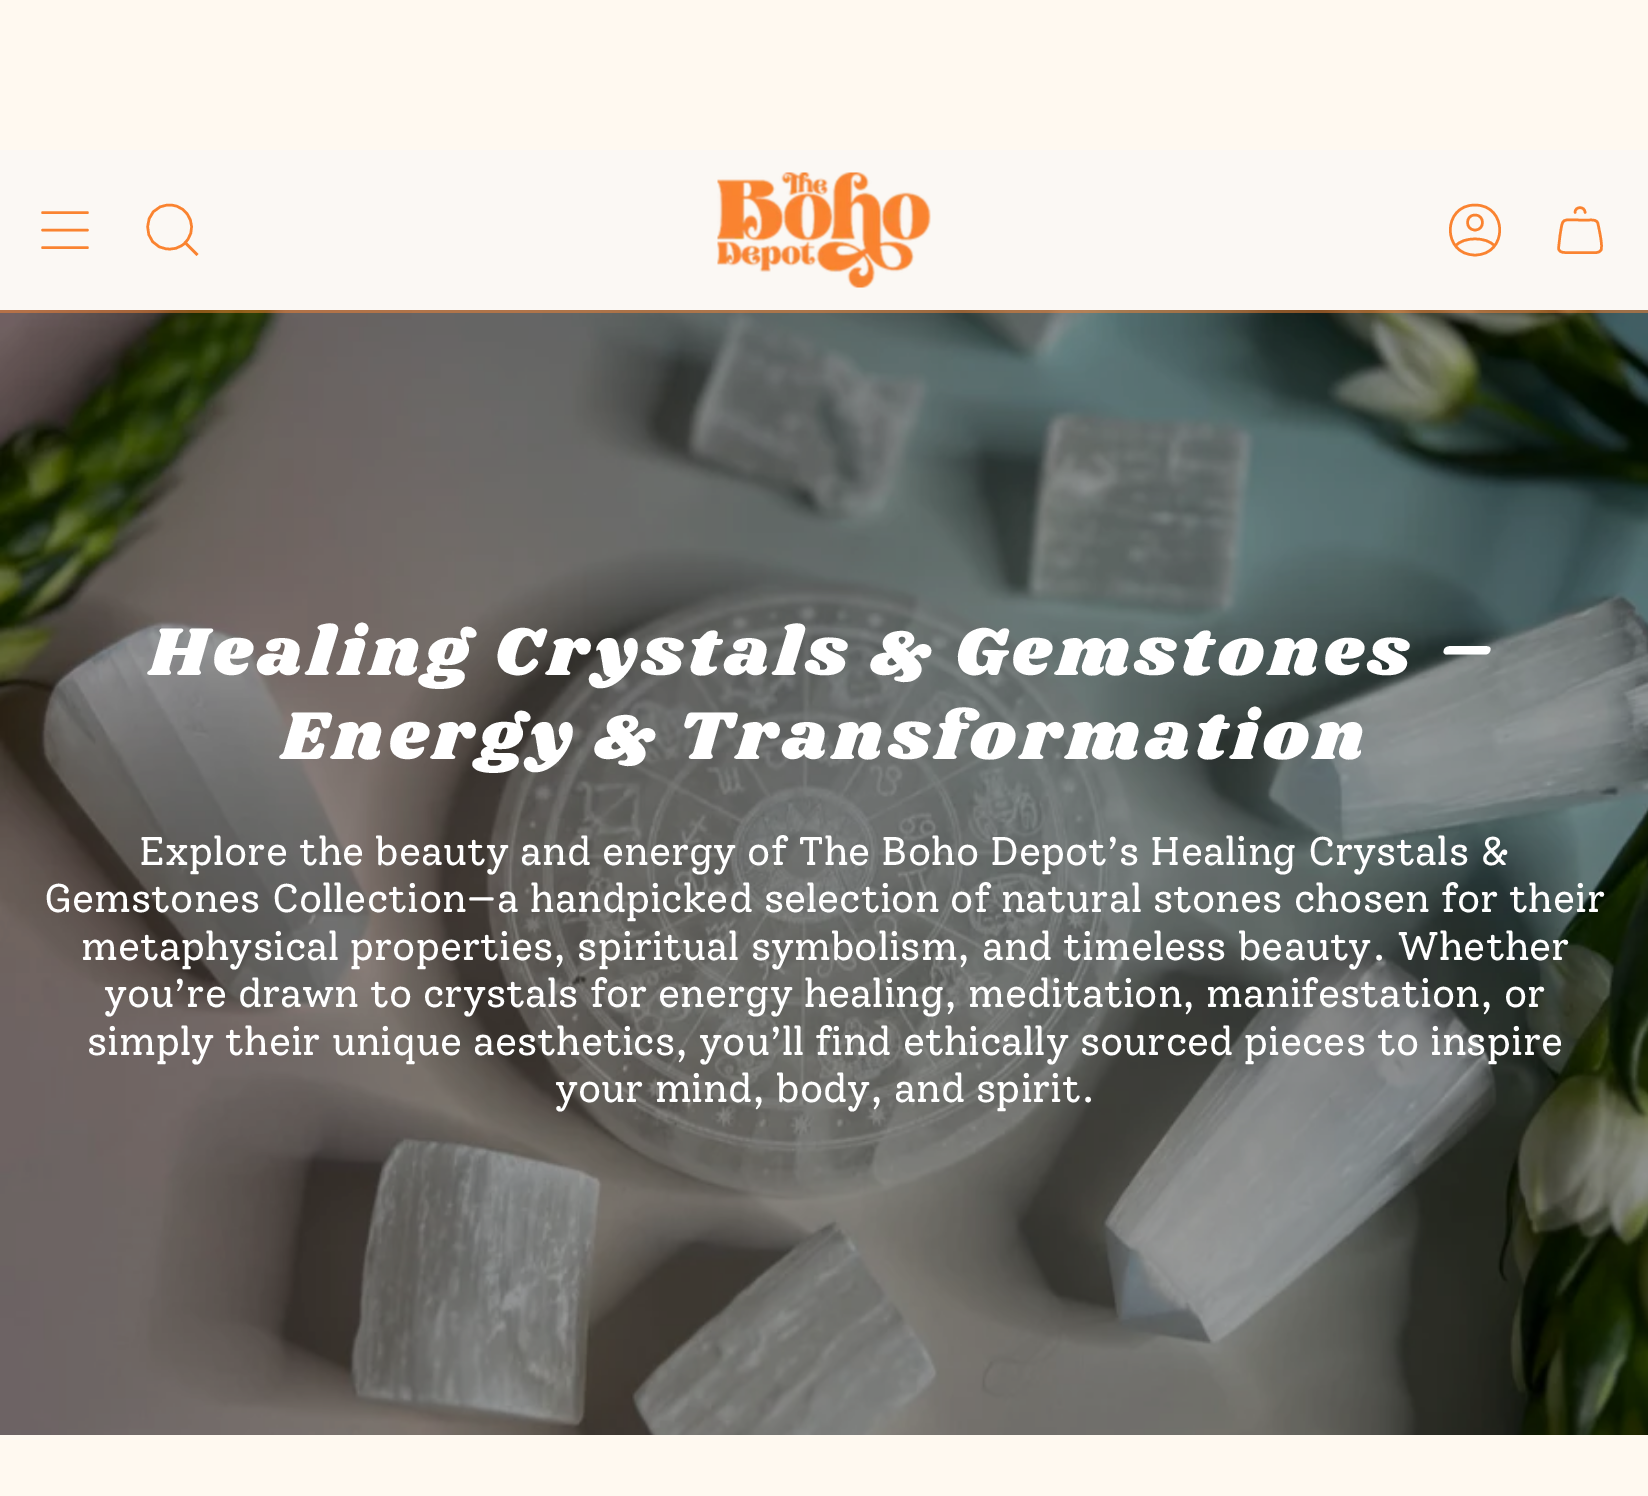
%!PS-Adobe-3.0
%%BoundingBox: 0 0 1648 1496
%%LanguageLevel: 3
%%Pages: 1
%%EndComments
%%BeginProlog
/m { moveto } bind def
/l { lineto } bind def
/c { curveto } bind def
/h { closepath } bind def
/S { stroke } bind def
/w { setlinewidth } bind def
/fn { [ exch dup neg 0 0 3 -1 roll 0 0 ] selectfont } def
/tx { moveto show } def
/bx { rectfill } def
/al { dup .setfillconstantalpha .setstrokeconstantalpha } def
/im { 5 dict begin { /h /w /y /x /name } { exch def } forall
  gsave x y translate w h scale
  w h 8 [w 0 0 h 0 0] name (r) file false 3 colorimage grestore end } def
%%EndProlog
%%BeginSetup
<< /PageSize [1648 1496] /PageUsesTransparency true >> setpagedevice
%%EndSetup
%%Page: 1 1
0 .pushpdf14devicefilter
0 1496 translate 1 -1 scale
4 setmiterlimit
1 0.976 0.941 setrgbcolor
0 0 1648 1496 bx
0.984 0.973 0.957 setrgbcolor
0 150 1648 160 bx
0.98 0.514 0.188 setrgbcolor
2.5 w
1 setlinecap
1 setlinejoin
42.5 212.5 m 87.5 212.5 l 42.5 230 m 87.5 230 l 42.5 247.5 m 87.5 247.5 l S
0 setlinecap
0 setlinejoin
169.5 205 m 190.5 205 200 232 182.5 245 c 178.5 248 173.5 249.5 168.5 249 c 140 248 141 205 169.5 205 c h 185.5 243 m 197.5 255 l S
(image0.raw) 717 172 214 116 im
1 setlinecap
1 setlinejoin
1475 205 m 1442 205 1442 255 1475 255 c 1508 255 1508 205 1475 205 c h 1455.5 246 m 1463 236.5 1487 236.5 1494.5 246 c 1475 230 m 1485 230 1485 215 1475 215 c 1465 215 1465 230 1475 230 c h S
1598 224 m 1599 228.5 1603 246.5 1601 250 c 1599 253.5 1594.5 252.5 1591 252.5 c 1569 252.5 l 1565 252.5 1559.5 253.5 1558.5 248.5 c 1560 235.5 l 1563 217 1561 220 1580 220 c 1589 220 l 1592.5 220 1597.5 219.5 1598 224 c h 1585 212.5 m 1585 206 1575 206 1575 212.5 c S
(image1.raw) 0 310 1648 1125 im
0.5 al
0 310 1648 3 bx
/Shrikhand-Regular 70 fn
1 al
1 setgray
149 675 m 5.25 0 (Healing Crystals & Gemstones –) ashow
281 759 m 5.25 0 (Energy & Transformation) ashow
/Solway-Regular 40 fn
(Explore the beauty and energy of The Boho Depot’s Healing Crystals &) 139 865 tx
(Gemstones Collection—a handpicked selection of natural stones chosen for their) 44 912 tx
(metaphysical properties, spiritual symbolism, and timeless beauty. Whether) 81 960 tx
(you’re drawn to crystals for energy healing, meditation, manifestation, or) 104 1007 tx
(simply their unique aesthetics, you’ll find ethically sourced pieces to inspire) 87 1055 tx
(your mind, body, and spirit.) 555 1102 tx
.poppdf14devicefilter showpage
%%EOF
